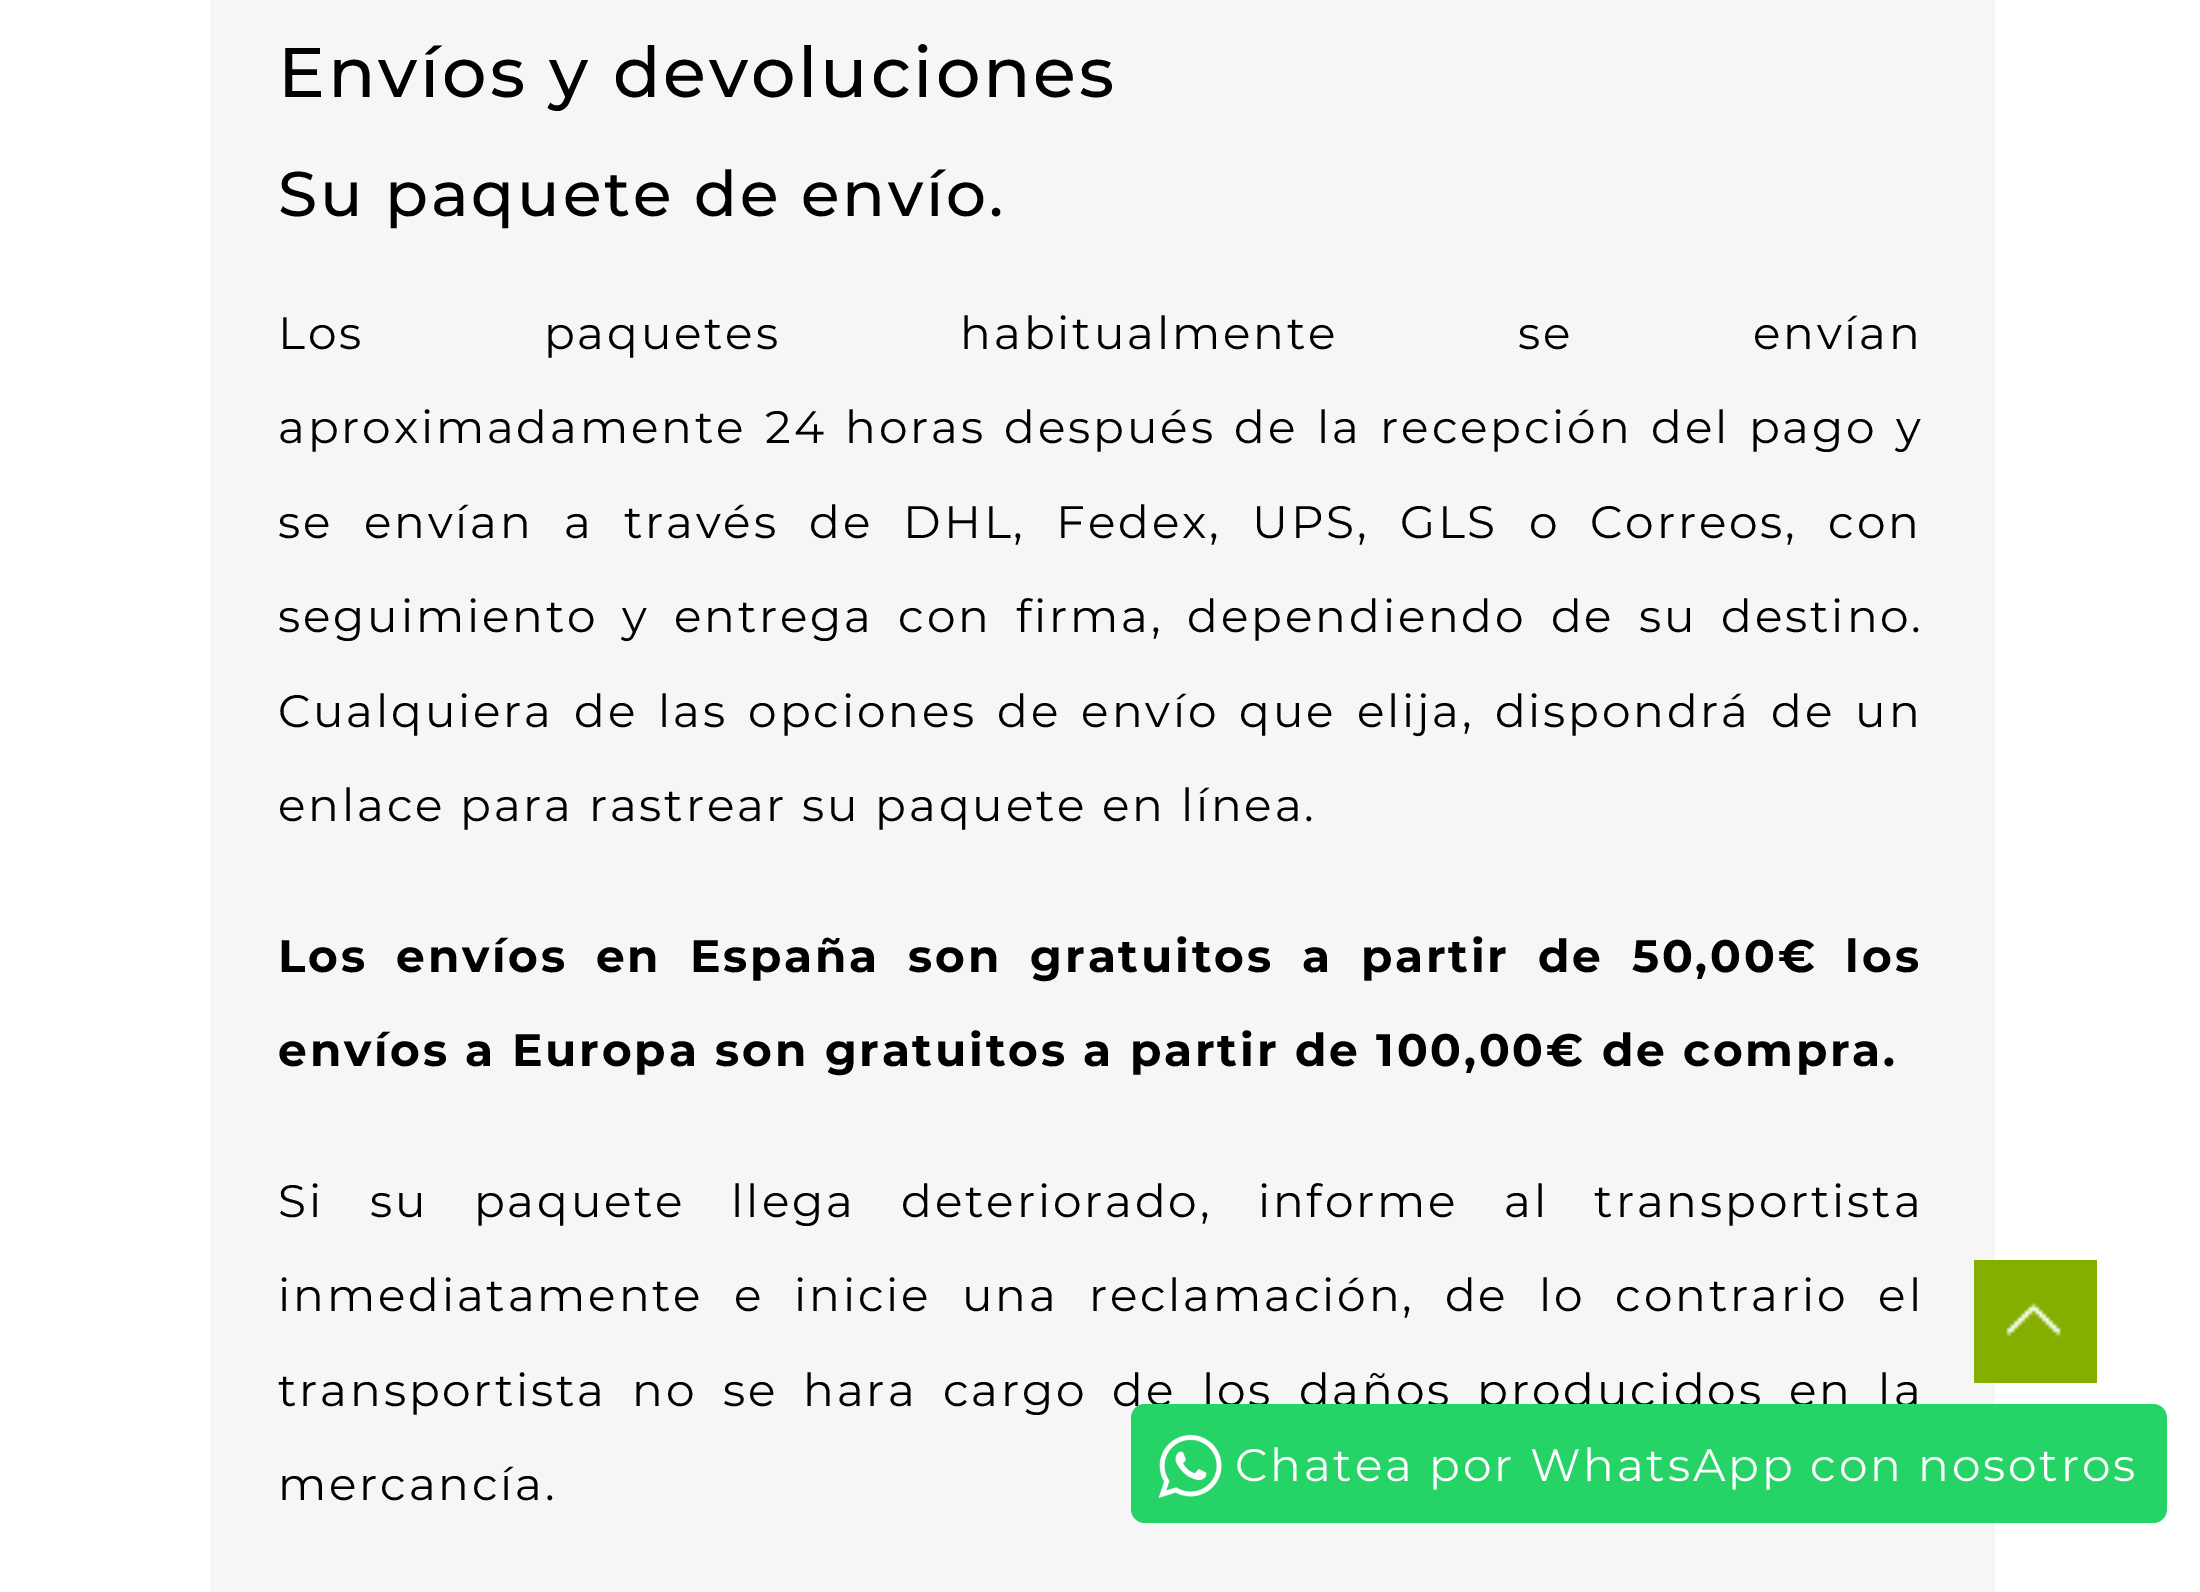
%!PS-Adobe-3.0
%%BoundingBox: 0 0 2200 1592
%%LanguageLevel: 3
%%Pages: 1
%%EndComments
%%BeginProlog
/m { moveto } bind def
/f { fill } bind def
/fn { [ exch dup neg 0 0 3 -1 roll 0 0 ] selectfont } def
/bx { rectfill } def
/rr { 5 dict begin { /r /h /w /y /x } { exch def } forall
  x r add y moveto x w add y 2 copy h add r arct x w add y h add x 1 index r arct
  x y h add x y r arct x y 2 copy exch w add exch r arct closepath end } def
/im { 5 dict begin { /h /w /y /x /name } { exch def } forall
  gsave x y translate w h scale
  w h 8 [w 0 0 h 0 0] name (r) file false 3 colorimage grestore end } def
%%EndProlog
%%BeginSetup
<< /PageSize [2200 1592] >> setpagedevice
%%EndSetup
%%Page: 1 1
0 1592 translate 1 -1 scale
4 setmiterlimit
1 setgray
0 0 2200 1592 bx
0.965 setgray
210 0 1785 1592 bx
/Montserrat-Medium 70 fn
0 setgray
278 97 m 2.8 0 (Envíos y devoluciones) ashow
/Montserrat-Medium 63 fn
278 216 m 2.8 0 (Su paquete de envío.) ashow
/Montserrat-Regular 45.5 fn
278 349 m 165 0 32 2.8 0 (Los paquetes habitualmente se envían) awidthshow
278 443 m 4 0 32 2.8 0 (aproximadamente 24 horas después de la recepción del pago y) awidthshow
278 538 m 15.75 0 32 2.8 0 (se envían a través de DHL, Fedex, UPS, GLS o Correos, con) awidthshow
278 632 m 9.5 0 32 2.8 0 (seguimiento y entrega con firma, dependiendo de su destino.) awidthshow
278 727 m 5.5 0 32 2.8 0 (Cualquiera de las opciones de envío que elija, dispondrá de un) awidthshow
278 821 m 2.8 0 (enlace para rastrear su paquete en línea.) ashow
/Montserrat-Bold 45.5 fn
278 972 m 12.5 0 32 2.8 0 (Los envíos en España son gratuitos a partir de 50,00€ los) awidthshow
278 1066 m 2.8 0 (envíos a Europa son gratuitos a partir de 100,00€ de compra.) ashow
/Montserrat-Regular 45.5 fn
278 1217 m 31 0 32 2.8 0 (Si su paquete llega deteriorado, informe al transportista) awidthshow
278 1311 m 15.5 0 32 2.8 0 (inmediatamente e inicie una reclamación, de lo contrario el) awidthshow
278 1406 m 10.75 0 32 2.8 0 (transportista no se hara cargo de los daños producidos en la) awidthshow
278 1500 m 2.8 0 (mercancía.) ashow
0.518 0.686 0 setrgbcolor
1974 1260 123 123 bx
(image0.raw) 2006 1302 55 35 im
0.145 0.827 0.4 setrgbcolor
1131 1404 1036 119 14 rr f
(image1.raw) 1158 1434 64 64 im
1 setgray
1235 1481 m 2.8 0 (Chatea por WhatsApp con nosotros) ashow
showpage
%%EOF
